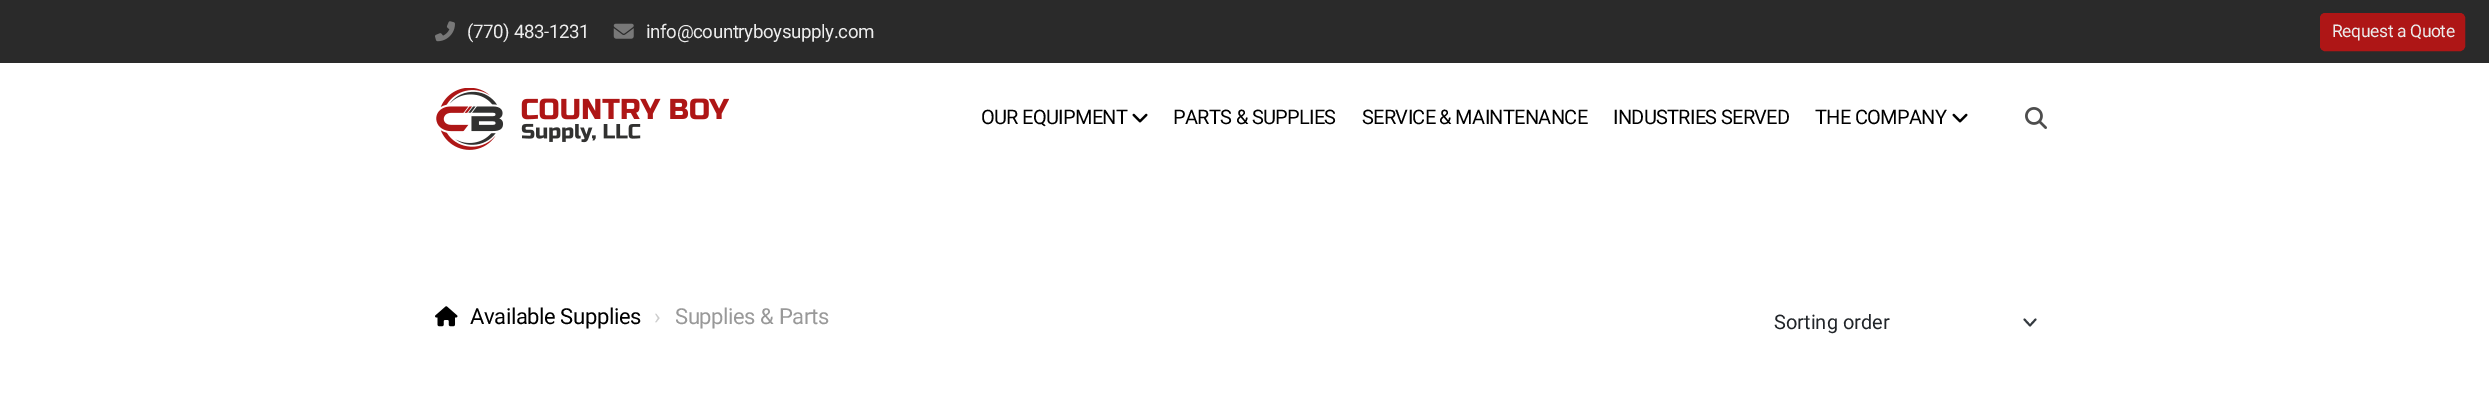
%!PS-Adobe-3.0
%%BoundingBox: 0 0 2489 393
%%LanguageLevel: 3
%%Pages: 1
%%EndComments
%%BeginProlog
/m { moveto } bind def
/l { lineto } bind def
/f { fill } bind def
/S { stroke } bind def
/q { gsave } bind def
/Q { grestore } bind def
/w { setlinewidth } bind def
/fn { [ exch dup neg 0 0 3 -1 roll 0 0 ] selectfont } def
/tx { moveto show } def
/bx { rectfill } def
/rr { 5 dict begin { /r /h /w /y /x } { exch def } forall
  x r add y moveto x w add y 2 copy h add r arct x w add y h add x 1 index r arct
  x y h add x y r arct x y 2 copy exch w add exch r arct closepath end } def
/im { 5 dict begin { /h /w /y /x /name } { exch def } forall
  gsave x y translate w h scale
  w h 8 [w 0 0 h 0 0] name (r) file false 3 colorimage grestore end } def
%%EndProlog
%%BeginSetup
<< /PageSize [2489 393] >> setpagedevice
%%EndSetup
%%Page: 1 1
0 393 translate 1 -1 scale
4 setmiterlimit
1 setgray
0 0 2489 393 bx
0.165 setgray
0 0 2489 63 bx
(image0.raw) 435 21 20 21 im
/Roboto-Regular 18.75 fn
0.925 setgray
467 38 m -0.4 0 (\(770\) 483-1231) ashow
(image1.raw) 613 23 21 16 im
646 38 m -0.4 0 (info@countryboysupply.com) ashow
0.682 0.086 0.086 setrgbcolor
2320.5 13.5 144 37 4.5 rr q f Q
S
/Roboto-Regular 17.5 fn
0.925 setgray
2332 37 m -0.4 0 (Request a Quote) ashow
(image2.raw) 436 88 293 62 im
/Roboto-Regular 20 fn
0 setgray
981 124 m -0.7 0 (OUR EQUIPMENT) ashow
(image3.raw) 1132 113 16 10 im
1173 124 m -0.7 0 (PARTS & SUPPLIES) ashow
1362 124 m -0.7 0 (SERVICE & MAINTENANCE) ashow
1613 124 m -0.7 0 (INDUSTRIES SERVED) ashow
1815 124 m -0.7 0 (THE COMPANY) ashow
(image3.raw) 1952 113 16 10 im
(image4.raw) 2025 107 22 22 im
(image5.raw) 435 306 23 21 im
/Roboto-Regular 22 fn
470 324 m -0.4 0 (Available Supplies) ashow
0.8 setgray
654 324 m -0.4 0 (›) ashow
0.6 setgray
675 324 m -0.4 0 (Supplies & Parts) ashow
0.204 0.227 0.251 setrgbcolor
1.9 w
1 setlinecap
1 setlinejoin
2024.5 319.5 m 2030 325.5 l 2035.5 319.5 l S
/Roboto-Regular 20 fn
0.129 0.145 0.161 setrgbcolor
(Sorting order) 1774 329 tx
showpage
%%EOF
